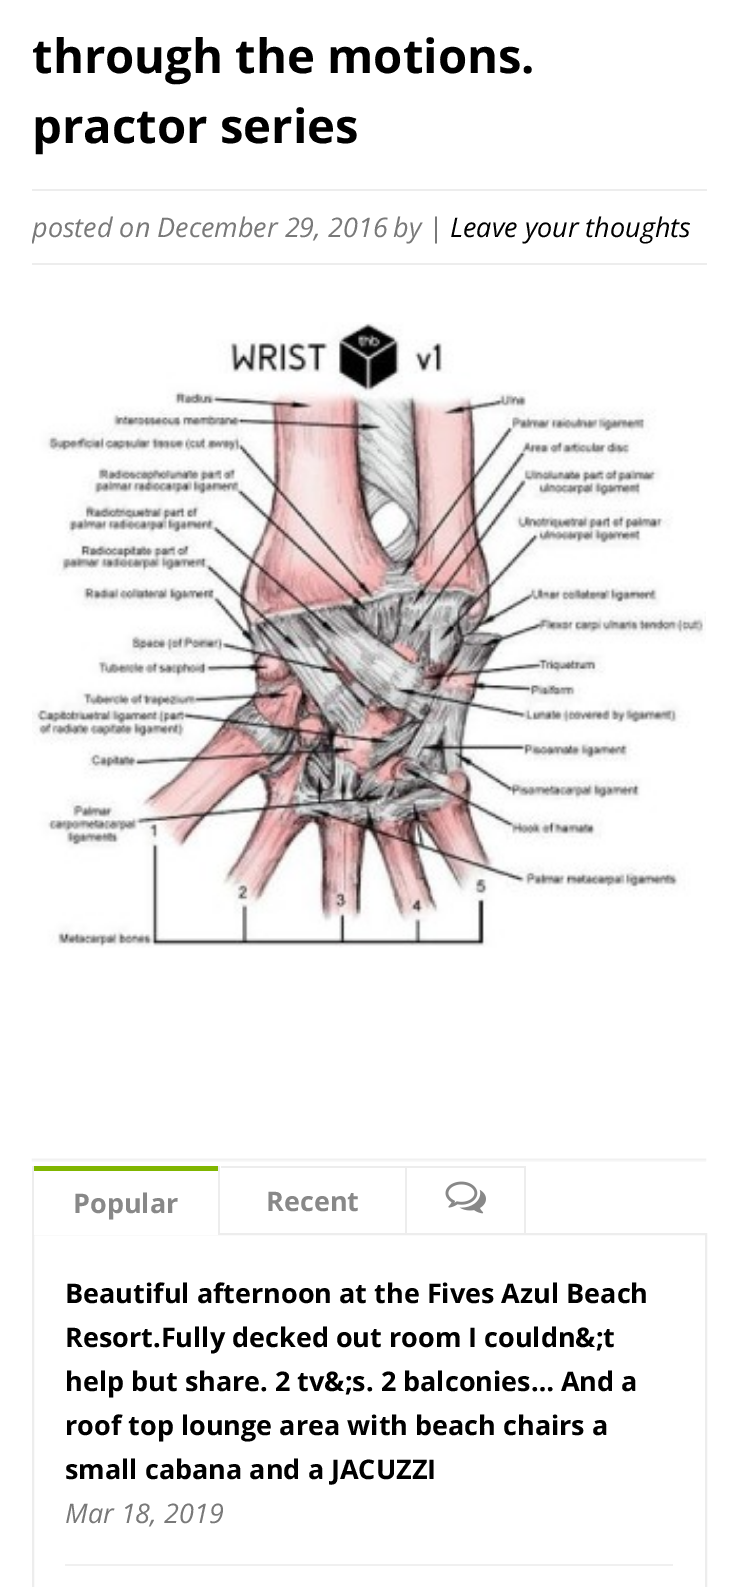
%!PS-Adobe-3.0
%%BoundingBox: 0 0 736 1587
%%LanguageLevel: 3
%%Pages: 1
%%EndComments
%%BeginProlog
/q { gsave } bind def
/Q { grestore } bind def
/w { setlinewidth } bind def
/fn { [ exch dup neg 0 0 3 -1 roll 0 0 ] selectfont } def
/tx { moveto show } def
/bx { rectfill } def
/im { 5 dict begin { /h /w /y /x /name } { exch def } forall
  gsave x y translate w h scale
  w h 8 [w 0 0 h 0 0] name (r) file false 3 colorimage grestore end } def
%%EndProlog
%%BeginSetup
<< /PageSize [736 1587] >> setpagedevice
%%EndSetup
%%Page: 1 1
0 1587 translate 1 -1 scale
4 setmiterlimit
1 setgray
0 0 736 1587 bx
/OpenSans-Bold 47.25 fn
0 setgray
(through the motions.) 32 73 tx
(practor series) 32 143 tx
0.929 setgray
32 189 675 2 bx
32 263 675 2 bx
q
32 191 675 72 rectclip
/OpenSans-Italic 27 fn
0.475 setgray
(posted on December 29, 2016) 32 237 tx
Q
/OpenSans-Italic 27 fn
0.475 setgray
(by |) 393 237 tx
0 setgray
(Leave your thoughts) 450 237 tx
(image0.raw) 31 1158 676 4 im
(image1.raw) 32 322 674 626 im
0.929 setgray
2 w
33 1234 673 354 rectstroke
218 1166 2 69 bx
32 1166 2 69 bx
1 setgray
34 1233 184 2 bx
0.502 0.714 0 setrgbcolor
34 1166 184 5 bx
/OpenSans-Bold 27 fn
0.533 setgray
(Popular) 73 1213 tx
0.929 setgray
405 1166 2 69 bx
221 1166 184 2 bx
0.533 setgray
(Recent) 266 1211 tx
0.929 setgray
524 1166 2 69 bx
407 1166 117 2 bx
(image2.raw) 445 1181 41 33 im
0.941 setgray
65 1564 608 2 bx
0 setgray
(Beautiful afternoon at the Fives Azul Beach) 65 1303 tx
(Resort.Fully decked out room I couldn&;t) 65 1347 tx
(help but share. 2 tv&;s. 2 balconies… And a) 65 1391 tx
(roof top lounge area with beach chairs a) 65 1435 tx
(small cabana and a JACUZZI) 65 1479 tx
/OpenSans-Italic 27 fn
0.475 setgray
(Mar 18, 2019) 65 1523 tx
showpage
%%EOF
